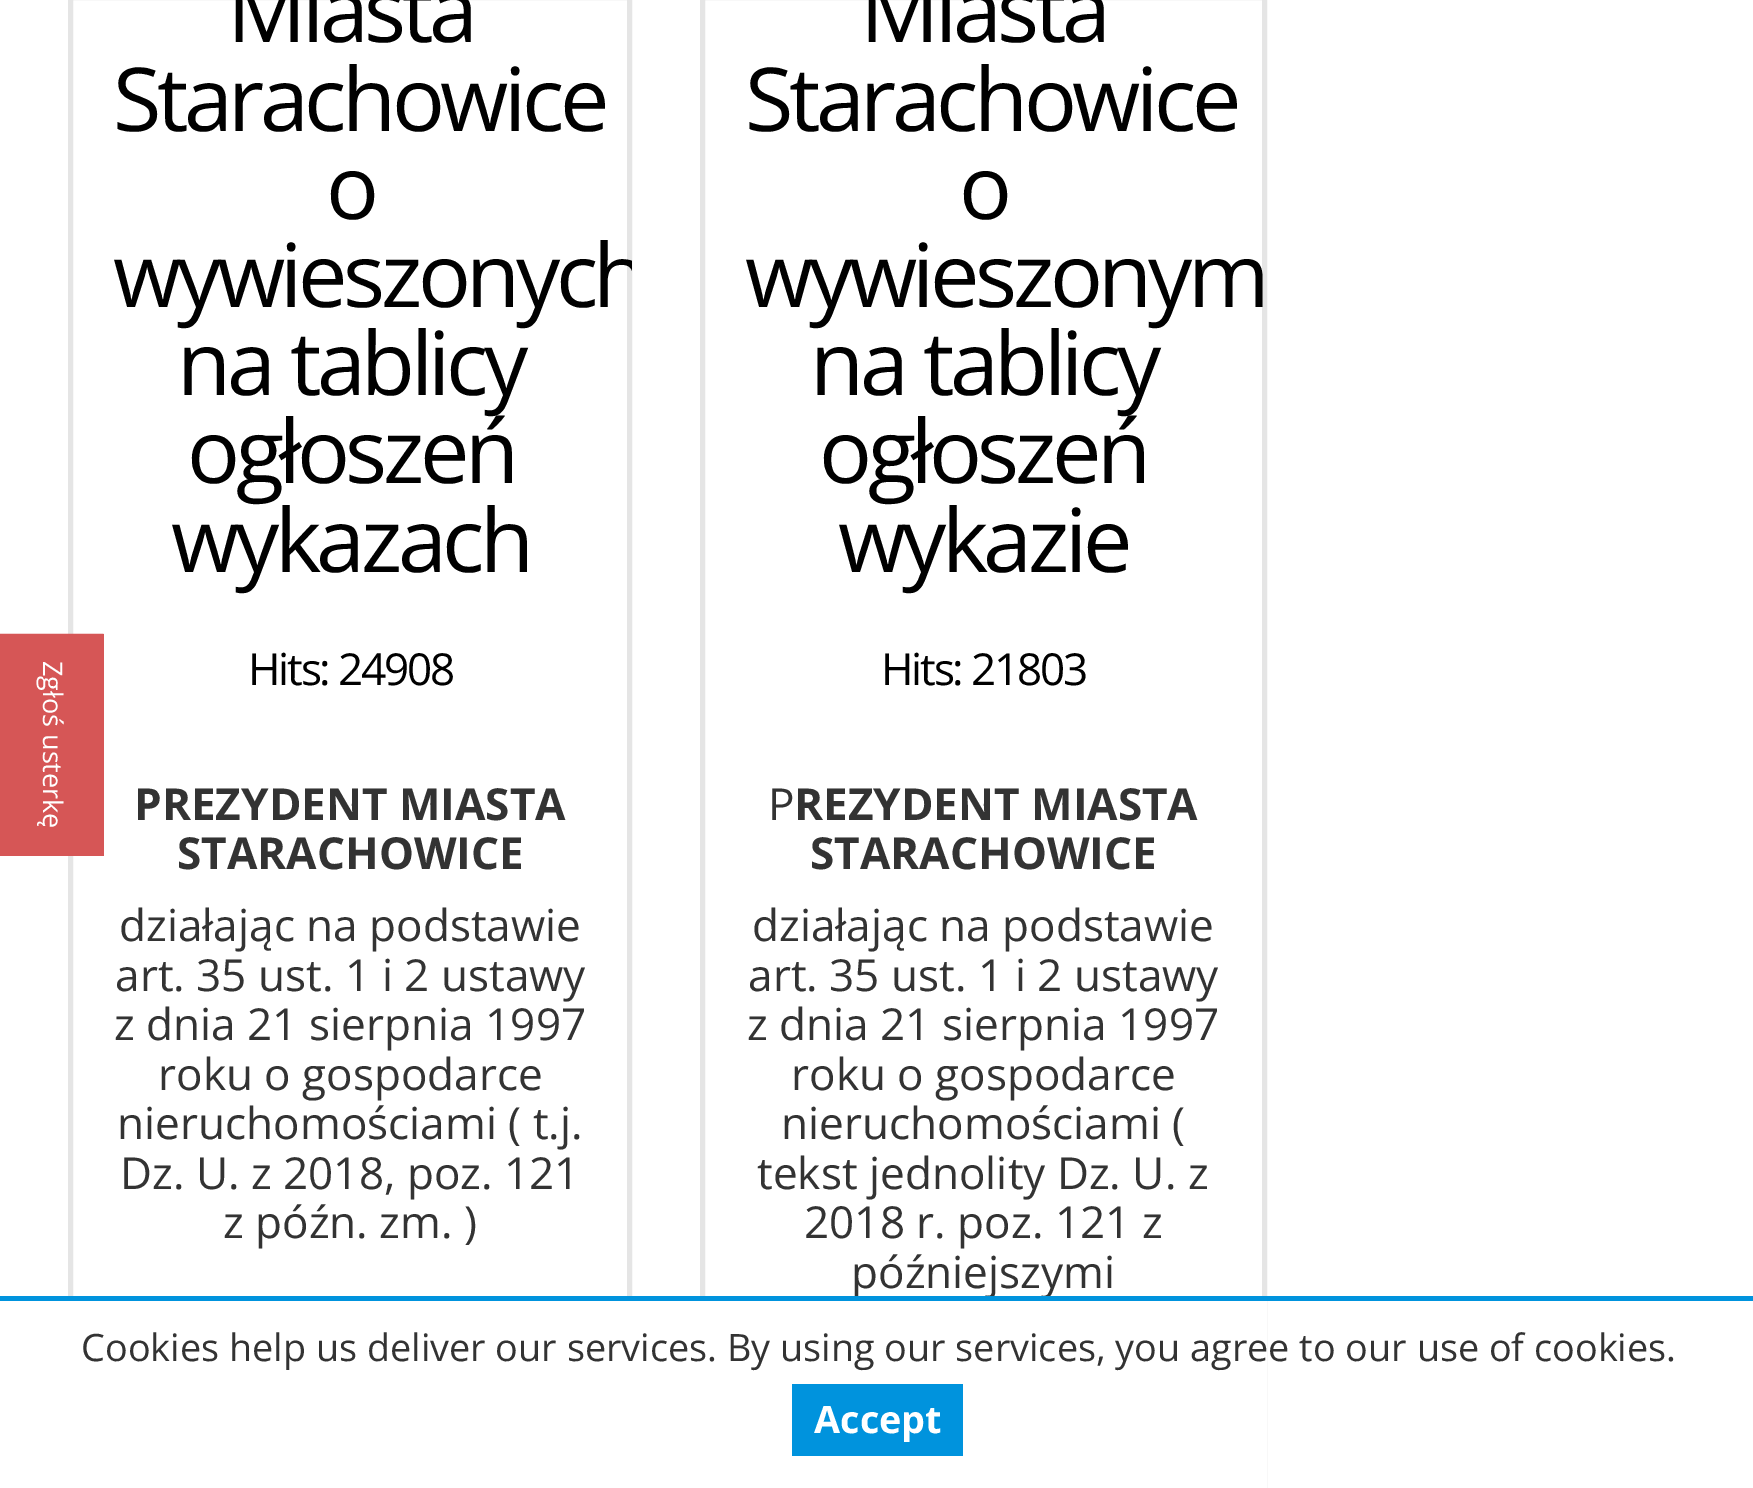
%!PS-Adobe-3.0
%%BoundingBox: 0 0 1753 1488
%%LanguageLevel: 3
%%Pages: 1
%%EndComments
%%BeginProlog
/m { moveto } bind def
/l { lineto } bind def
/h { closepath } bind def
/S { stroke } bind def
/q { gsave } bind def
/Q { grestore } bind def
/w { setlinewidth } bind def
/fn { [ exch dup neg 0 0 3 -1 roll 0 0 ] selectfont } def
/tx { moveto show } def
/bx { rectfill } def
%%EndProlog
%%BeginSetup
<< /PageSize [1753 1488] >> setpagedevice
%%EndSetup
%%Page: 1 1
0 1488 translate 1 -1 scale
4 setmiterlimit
1 setgray
0 0 1753 1488 bx
0.898 setgray
5 w
70.5 -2.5 559 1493 rectstroke
0.839 0.337 0.337 setrgbcolor
0 634 104 222 bx
4.5 w
101 636 m 101 853.5 l 2 853.5 l 2 636 l h S
/OpenSans-Regular 27 fn
1 setgray
q 43 661 translate 90 rotate 0 0 m (Zgłoś usterkę) show Q
/OpenSans-Regular 88.25 fn
0 setgray
227 42 m -4.5 0 (Miasta) ashow
113 131 m -4.5 0 (Starachowice) ashow
326 219 m -4.5 0 (o) ashow
q
68 0 564 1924 rectclip
113 307 m -4.5 0 (wywieszonych) ashow
Q
177 395 m -4.5 0 (na tablicy) ashow
187 483 m -4.5 0 (ogłoszeń) ashow
171 572 m -4.5 0 (wykazach) ashow
/OpenSans-Regular 44.1 fn
248 685 m -2.25 0 (Hits: 24908) ashow
/OpenSans-Bold 44.1 fn
0.2 setgray
(PREZYDENT MIASTA) 134 820 tx
(STARACHOWICE) 177 869 tx
/OpenSans-Regular 44.1 fn
(działając na podstawie) 119 941 tx
(art. 35 ust. 1 i 2 ustawy) 115 991 tx
(z dnia 21 sierpnia 1997) 114 1040 tx
(roku o gospodarce) 158 1090 tx
(nieruchomościami \( t.j.) 117 1139 tx
(Dz. U. z 2018, poz. 121) 120 1189 tx
(z późn. zm. \)) 223 1238 tx
0.898 setgray
5 w
702.5 -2.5 562 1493 rectstroke
/OpenSans-Regular 88.25 fn
0 setgray
860 42 m -4.5 0 (Miasta) ashow
745 131 m -4.5 0 (Starachowice) ashow
959 219 m -4.5 0 (o) ashow
745 307 m -4.5 0 (wywieszonym) ashow
810 395 m -4.5 0 (na tablicy) ashow
819 483 m -4.5 0 (ogłoszeń) ashow
838 572 m -4.5 0 (wykazie) ashow
/OpenSans-Regular 44.1 fn
881 685 m -2.25 0 (Hits: 21803) ashow
0.2 setgray
(P) 768 820 tx
/OpenSans-Bold 44.1 fn
(REZYDENT MIASTA) 794 820 tx
(STARACHOWICE) 810 869 tx
/OpenSans-Regular 44.1 fn
(działając na podstawie) 752 941 tx
(art. 35 ust. 1 i 2 ustawy) 748 991 tx
(z dnia 21 sierpnia 1997) 747 1040 tx
(roku o gospodarce) 791 1090 tx
(nieruchomościami \() 781 1139 tx
(tekst jednolity Dz. U. z) 757 1189 tx
(2018 r. poz. 121 z) 804 1238 tx
(późniejszymi) 851 1288 tx
1 setgray
68 1301 1199 187 bx
0 0.576 0.867 setrgbcolor
0 1296 1753 5 bx
/OpenSans-Regular 37.8 fn
0.2 setgray
(Cookies help us deliver our services. By using our services, you agree to our use of cookies.) 81 1361 tx
0 0.576 0.867 setrgbcolor
792 1384 171 72 bx
/OpenSans-Bold 37.8 fn
1 setgray
(Accept) 814 1433 tx
showpage
%%EOF
